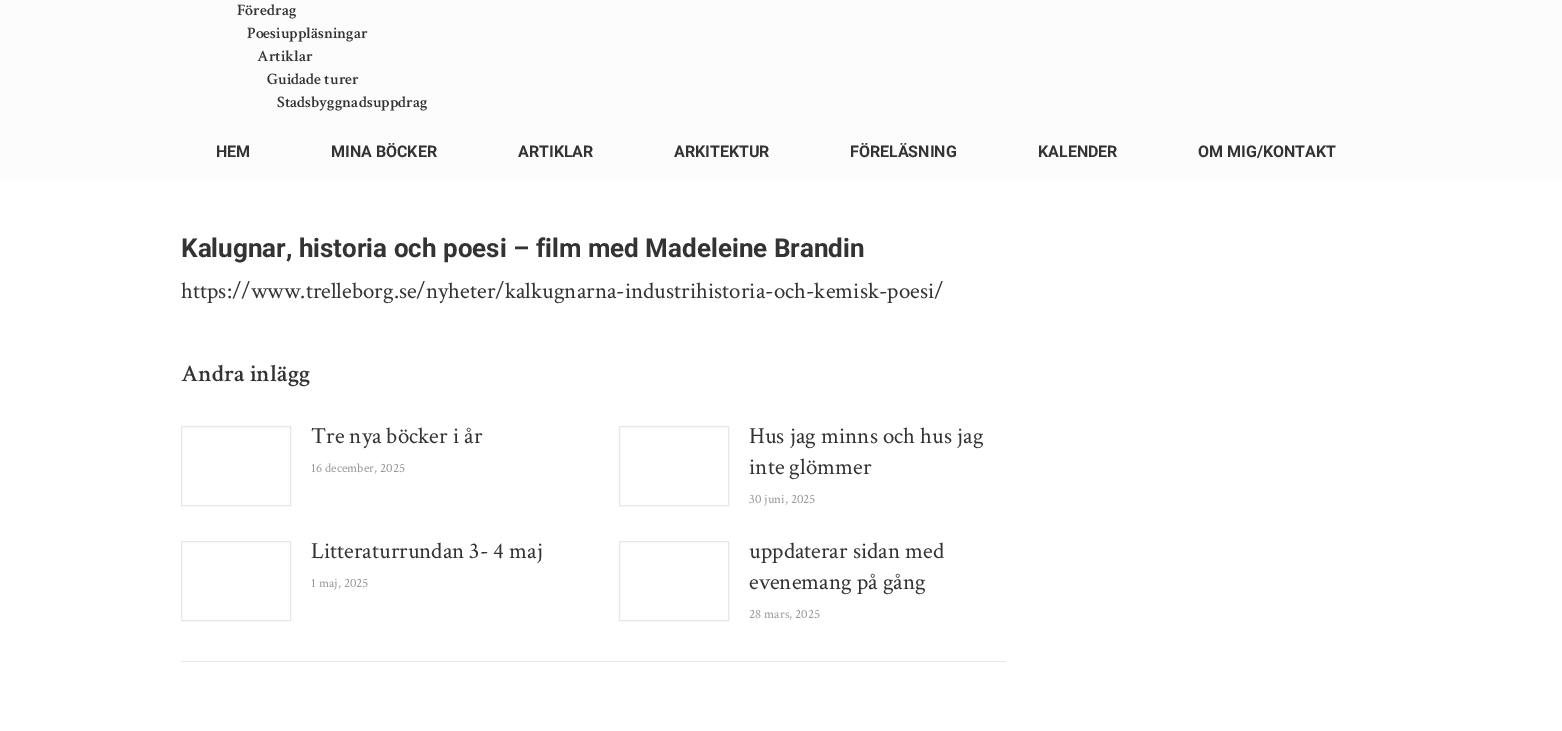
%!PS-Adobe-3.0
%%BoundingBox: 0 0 1562 731
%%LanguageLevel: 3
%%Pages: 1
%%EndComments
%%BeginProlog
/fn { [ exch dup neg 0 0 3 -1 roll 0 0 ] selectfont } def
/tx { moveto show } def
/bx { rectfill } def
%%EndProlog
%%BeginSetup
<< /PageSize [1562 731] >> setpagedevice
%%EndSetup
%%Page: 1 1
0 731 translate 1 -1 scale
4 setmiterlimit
1 setgray
0 0 1562 731 bx
0.988 setgray
0 0 1562 180 bx
/CrimsonText-SemiBold 16 fn
0.2 setgray
(Föredrag) 237 15 tx
(Poesiuppläsningar) 247 38 tx
(Artiklar) 257 61 tx
(Guidade turer) 267 84 tx
(Stadsbyggnadsuppdrag) 277 107 tx
/Roboto-Bold 16 fn
(HEM) 216 157 tx
(MINA BÖCKER) 331 157 tx
(ARTIKLAR) 518 157 tx
(ARKITEKTUR) 674 157 tx
(FÖRELÄSNING) 850 157 tx
(KALENDER) 1038 157 tx
(OM MIG/KONTAKT) 1198 157 tx
/Roboto-Bold 26 fn
(Kalugnar, historia och poesi – film med Madeleine Brandin) 181 257 tx
/CrimsonText-Regular 23 fn
(https://www.trelleborg.se/nyheter/kalkugnarna-industrihistoria-och-kemisk-poesi/) 181 298 tx
0.906 setgray
181 661 825 1 bx
/CrimsonText-SemiBold 24 fn
0.2 setgray
(Andra inlägg) 181 381 tx
0.906 setgray
181.5 426.5 109 79 rectstroke
/CrimsonText-Regular 23 fn
0.2 setgray
(Tre nya böcker i år) 311 443 tx
/CrimsonText-Regular 13 fn
0.6 setgray
(16 december, 2025) 311 472 tx
0.906 setgray
619.5 426.5 109 79 rectstroke
/CrimsonText-Regular 23 fn
0.2 setgray
(Hus jag minns och hus jag) 749 443 tx
(inte glömmer) 749 474 tx
/CrimsonText-Regular 13 fn
0.6 setgray
(30 juni, 2025) 749 503 tx
0.906 setgray
181.5 541.5 109 79 rectstroke
/CrimsonText-Regular 23 fn
0.2 setgray
(Litteraturrundan 3- 4 maj) 311 558 tx
/CrimsonText-Regular 13 fn
0.6 setgray
(1 maj, 2025) 311 587 tx
0.906 setgray
619.5 541.5 109 79 rectstroke
/CrimsonText-Regular 23 fn
0.2 setgray
(uppdaterar sidan med) 749 558 tx
(evenemang på gång) 749 589 tx
/CrimsonText-Regular 13 fn
0.6 setgray
(28 mars, 2025) 749 618 tx
showpage
%%EOF
